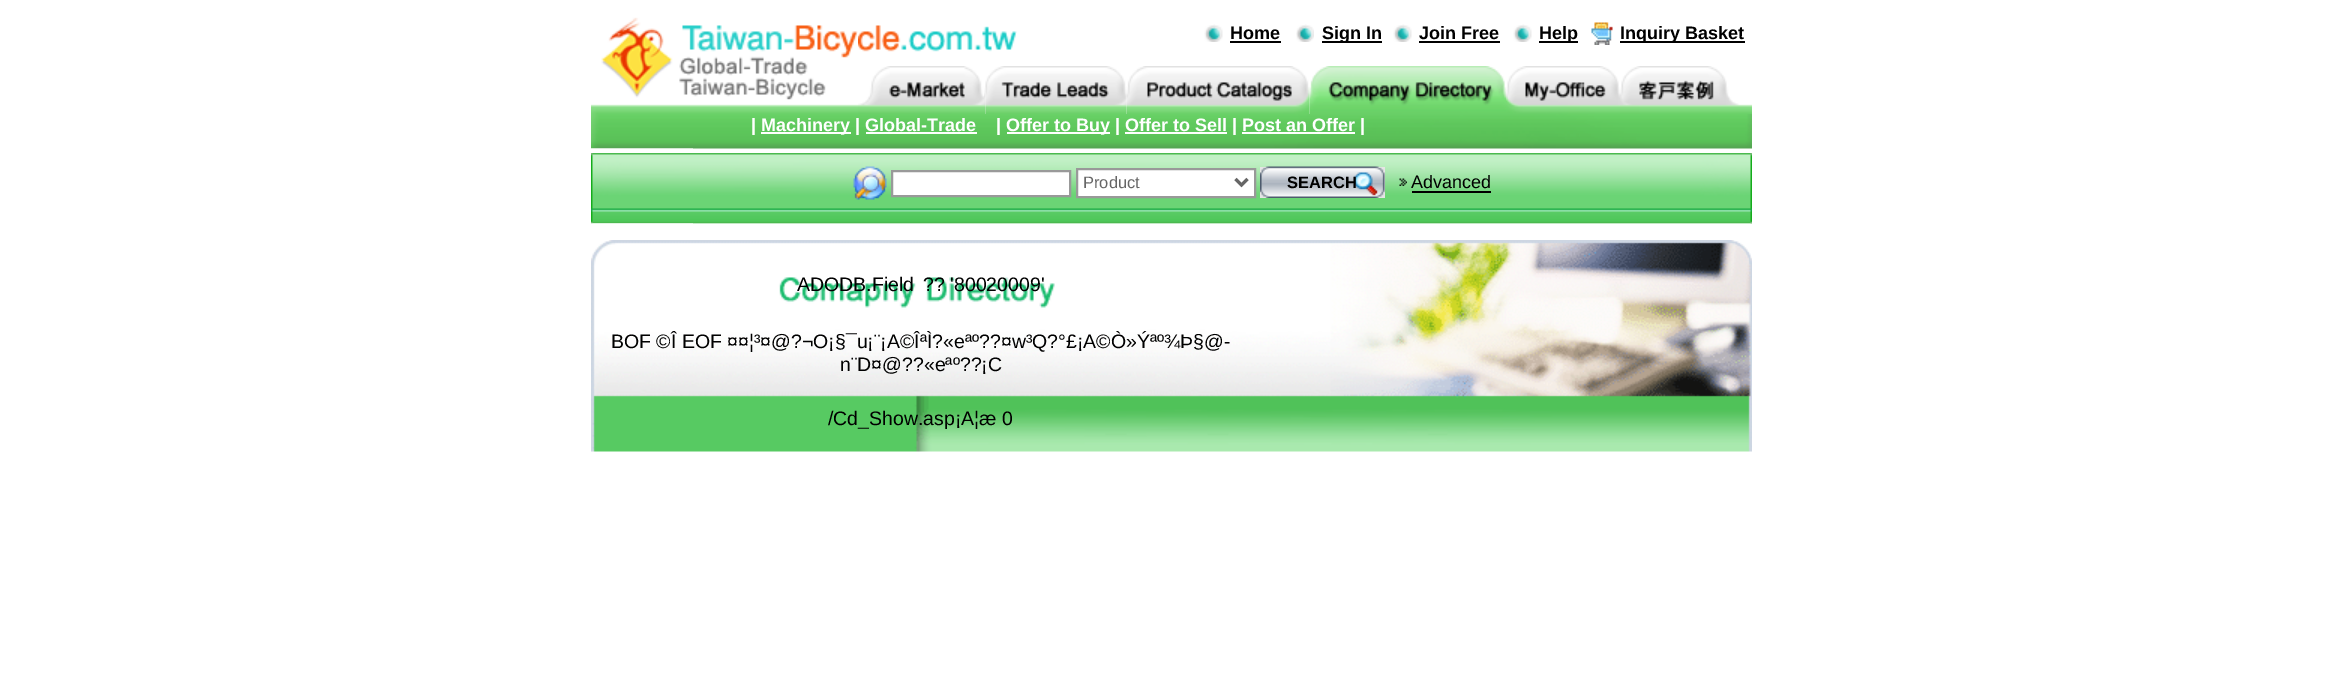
%!PS-Adobe-3.0
%%BoundingBox: 0 0 2343 700
%%LanguageLevel: 3
%%Pages: 1
%%EndComments
%%BeginProlog
/m { moveto } bind def
/l { lineto } bind def
/h { closepath } bind def
/f { fill } bind def
/S { stroke } bind def
/q { gsave } bind def
/Q { grestore } bind def
/w { setlinewidth } bind def
/fn { [ exch dup neg 0 0 3 -1 roll 0 0 ] selectfont } def
/tx { moveto show } def
/bx { rectfill } def
/al { dup .setfillconstantalpha .setstrokeconstantalpha } def
/im { 5 dict begin { /h /w /y /x /name } { exch def } forall
  gsave x y translate w h scale
  w h 8 [w 0 0 h 0 0] name (r) file false 3 colorimage grestore end } def
%%EndProlog
%%BeginSetup
<< /PageSize [2343 700] /PageUsesTransparency true >> setpagedevice
%%EndSetup
%%Page: 1 1
0 .pushpdf14devicefilter
0 700 translate 1 -1 scale
4 setmiterlimit
1 setgray
0 0 2343 700 bx
(image0.raw) 591 17 267 97 im
(image1.raw) 858 25 159 27 im
(image2.raw) 1204 24 19 18 im
/LiberationSans-Bold 18 fn
0 setgray
(Home) 1230 39 tx
1230 41 51 2 bx
(image3.raw) 1296 24 18 18 im
1322 41 60 2 bx
(Sign In) 1322 39 tx
(image2.raw) 1393 24 19 18 im
(Join Free) 1419 39 tx
1419 41 81 2 bx
(image4.raw) 1513 24 19 18 im
1539 41 39 2 bx
(Help) 1539 39 tx
(image5.raw) 1591 22 22 23 im
1620 41 125 2 bx
(Inquiry Basket) 1620 39 tx
(image6.raw) 858 66 128 48 im
(image7.raw) 985 66 142 48 im
(image8.raw) 1126 66 184 48 im
(image9.raw) 1309 66 197 48 im
(image10.raw) 1506 66 114 48 im
(image11.raw) 1620 66 132 48 im
(image12.raw) 591 114 1161 35 im
1 setgray
(|) 751 131 tx
761 132 90 2 bx
(Machinery | Global-Trade) 761 131 tx
866 132 111 2 bx
(|) 996 131 tx
1007 132 103 2 bx
(Offer to Buy | Offer to Sell | Post an Offer |) 1006 131 tx
1125 132 102 2 bx
1242 132 113 2 bx
0.5 al
591 148 102 1 bx
1 al
(image13.raw) 591 153 1161 71 im
(image14.raw) 853 166 34 34 im
892 171 m 1070 171 l 1070 196 l 892 196 l h q f Q
0.6 setgray
2 w
S
1 setgray
1077 169 m 1255 169 l 1255 197 l 1077 197 l h q f Q
0.6 setgray
S
0.4 setgray
3 w
1235.5 179 m 1241.5 185 l 1247.5 179 l S
/LiberationSans-Regular 16.5 fn
(Product) 1083 188 tx
0.898 setgray
1260 167 125 31 bx
(image15.raw) 1260 166 125 32 im
/LiberationSans-Bold 16.5 fn
0 setgray
(SEARCH) 1287 188 tx
(image16.raw) 1399 178 8 8 im
/LiberationSans-Regular 18 fn
(Advanced) 1411 188 tx
1412 191 79 2 bx
0.5 al
1 setgray
591 223 102 1 bx
1 al
(image17.raw) 591 240 1161 212 im
/LiberationSans-Regular 19.5 fn
0 setgray
(ADODB.Field) 797 291 tx
(?? '80020009') 923 291 tx
(BOF ©Î EOF ¤¤¦³¤@?¬O¡§¯u¡¨¡A©ÎªÌ?«eªº??¤w³Q?°£¡A©Ò»Ýªº¾Þ§@-) 611 348 tx
(n¨D¤@??«eªº??¡C) 840 371 tx
(/Cd_Show.asp¡A¦æ 0) 828 425 tx
.poppdf14devicefilter showpage
%%EOF
